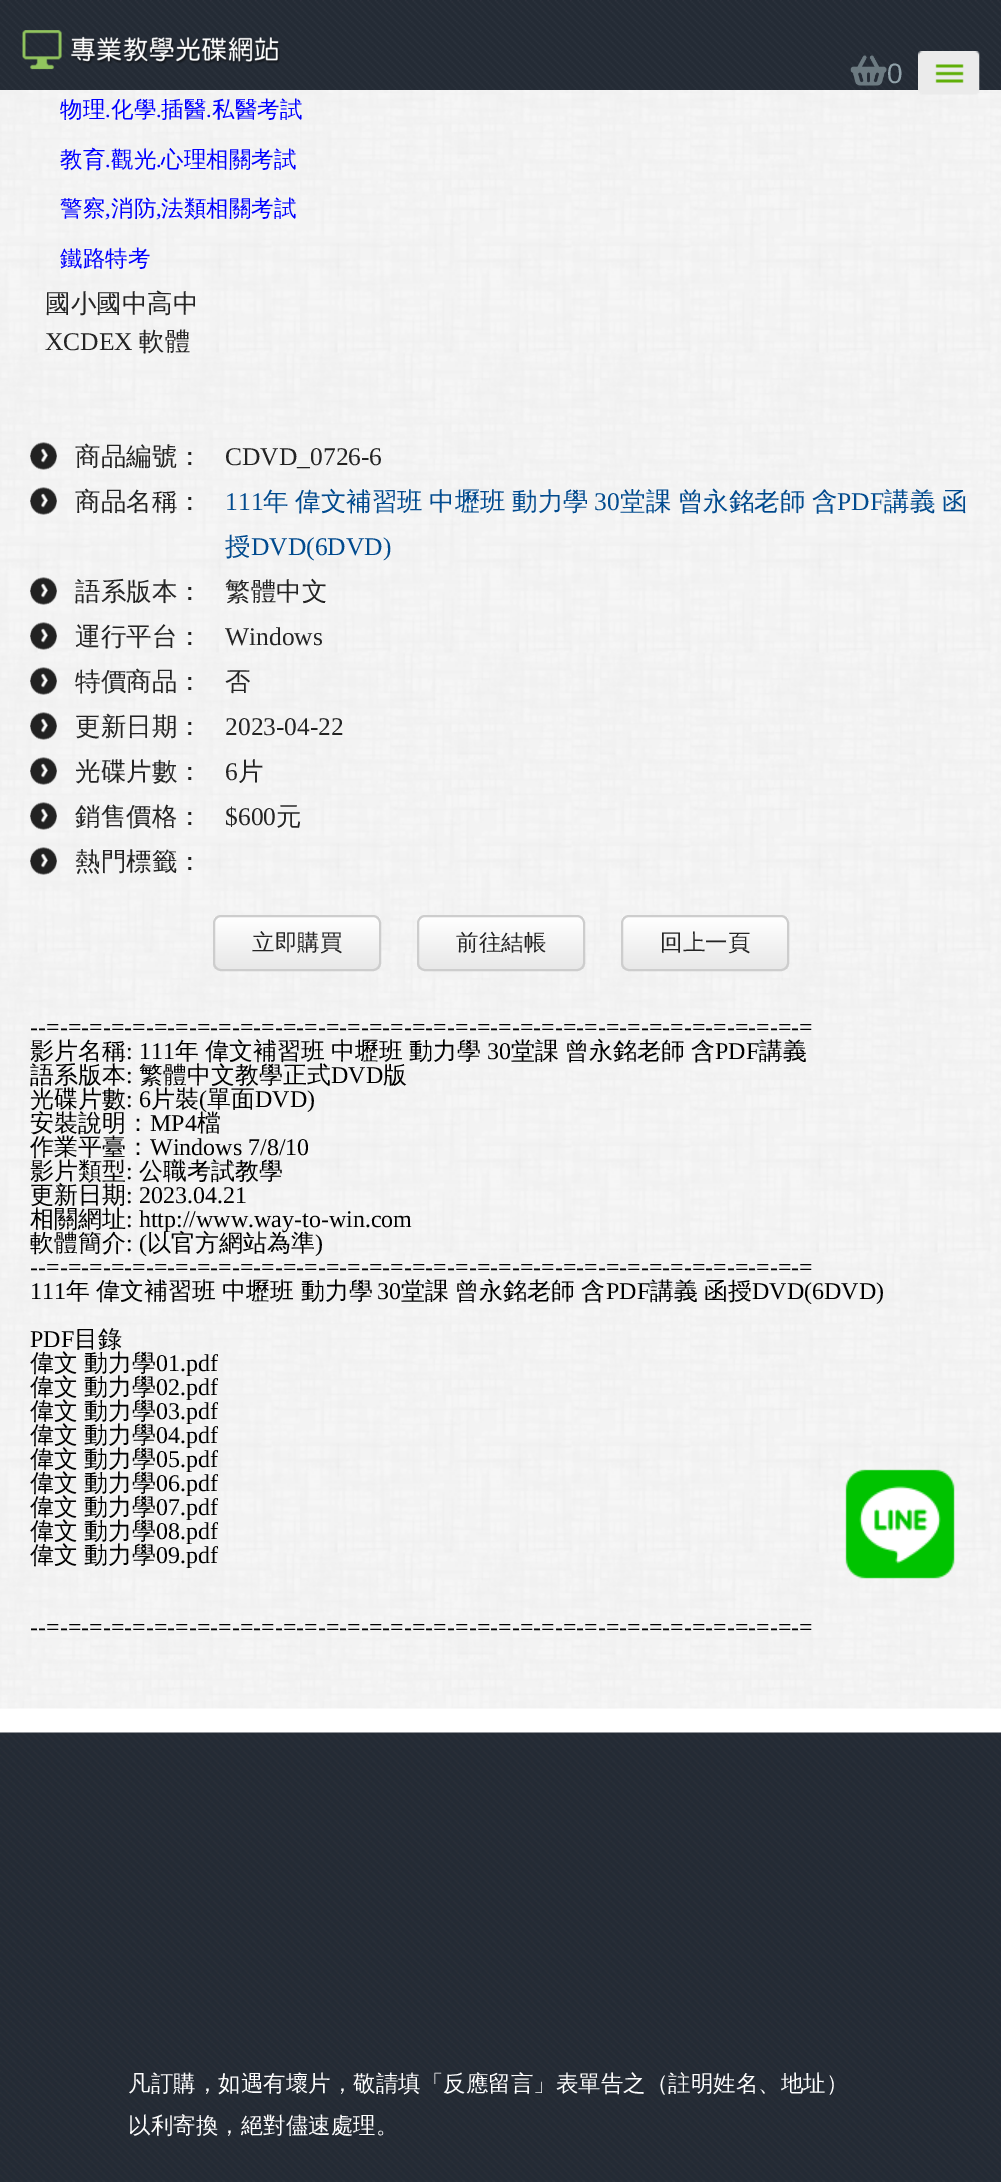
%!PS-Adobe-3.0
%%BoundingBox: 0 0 1001 2182
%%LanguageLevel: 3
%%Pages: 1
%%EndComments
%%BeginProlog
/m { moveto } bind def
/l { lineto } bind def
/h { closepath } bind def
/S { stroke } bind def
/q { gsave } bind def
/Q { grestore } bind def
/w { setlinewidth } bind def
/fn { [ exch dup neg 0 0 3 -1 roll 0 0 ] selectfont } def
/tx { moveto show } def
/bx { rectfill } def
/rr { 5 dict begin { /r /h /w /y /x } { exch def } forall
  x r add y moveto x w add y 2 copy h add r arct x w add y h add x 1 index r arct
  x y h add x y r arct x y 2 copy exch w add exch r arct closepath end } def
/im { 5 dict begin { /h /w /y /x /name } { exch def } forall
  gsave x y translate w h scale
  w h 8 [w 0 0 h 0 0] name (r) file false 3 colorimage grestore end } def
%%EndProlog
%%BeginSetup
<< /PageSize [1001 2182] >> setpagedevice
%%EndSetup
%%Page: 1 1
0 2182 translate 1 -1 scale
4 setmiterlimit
1 setgray
0 0 1001 2182 bx
(image0.raw) 0 0 1001 90 im
(image1.raw) 22 30 258 40 im
(image2.raw) 850 55 37 31 im
/LiberationSans-Regular 28 fn
0.569 0.635 0.667 setrgbcolor
(0) 887 83 tx
(image4.raw) 0 90 1001 1619 im
(image3.raw) 918 51 62 44 im
/WenQuanYiZenHei-Medium 22.5 fn
0 0 1 setrgbcolor
(物理) 60 117 tx
/LiberationSerif-Regular 22.5 fn
(.) 105 117 tx
/WenQuanYiZenHei-Medium 22.5 fn
(化學) 111 117 tx
/LiberationSerif-Regular 22.5 fn
(.) 156 117 tx
/WenQuanYiZenHei-Medium 22.5 fn
(插醫) 161 117 tx
/LiberationSerif-Regular 22.5 fn
(.) 206 117 tx
/WenQuanYiZenHei-Medium 22.5 fn
(私醫考試) 212 117 tx
(教育) 60 167 tx
/LiberationSerif-Regular 22.5 fn
(.) 105 167 tx
/WenQuanYiZenHei-Medium 22.5 fn
(觀光) 111 167 tx
/LiberationSerif-Regular 22.5 fn
(.) 156 167 tx
/WenQuanYiZenHei-Medium 22.5 fn
(心理相關考試) 161 167 tx
(警察) 60 216 tx
/LiberationSerif-Regular 22.5 fn
(,) 105 216 tx
/WenQuanYiZenHei-Medium 22.5 fn
(消防) 111 216 tx
/LiberationSerif-Regular 22.5 fn
(,) 156 216 tx
/WenQuanYiZenHei-Medium 22.5 fn
(法類相關考試) 161 216 tx
(鐵路特考) 60 266 tx
/WenQuanYiZenHei-Medium 25.5 fn
0.141 setgray
(國小國中高中) 45 312 tx
/LiberationSerif-Regular 25.5 fn
(XCDEX) 45 350 tx
/WenQuanYiZenHei-Medium 25.5 fn
(軟體) 139 350 tx
(image5.raw) 30 442 27 28 im
(商品編號：) 75 465 tx
/LiberationSerif-Regular 25.5 fn
(CDVD_0726-6) 225 465 tx
(image6.raw) 30 487 27 28 im
/WenQuanYiZenHei-Medium 25.5 fn
(商品名稱：) 75 510 tx
/LiberationSerif-Regular 25.5 fn
0 0.29 0.557 setrgbcolor
(111) 225 510 tx
/WenQuanYiZenHei-Medium 25.5 fn
263 510 m -1 0 32 (年 偉文補習班 中壢班 動力學) widthshow
/LiberationSerif-Regular 25.5 fn
(30) 594 510 tx
/WenQuanYiZenHei-Medium 25.5 fn
620 510 m -1 0 32 (堂課 曾永銘老師 含) widthshow
/LiberationSerif-Regular 25.5 fn
(PDF) 837 510 tx
/WenQuanYiZenHei-Medium 25.5 fn
884 510 m -1 0 32 (講義 函) widthshow
(授) 225 555 tx
/LiberationSerif-Regular 25.5 fn
(DVD\(6DVD\)) 251 555 tx
(image7.raw) 30 577 27 28 im
/WenQuanYiZenHei-Medium 25.5 fn
0.141 setgray
(語系版本：) 75 600 tx
(繁體中文) 225 600 tx
(image8.raw) 30 622 27 28 im
(運行平台：) 75 645 tx
/LiberationSerif-Regular 25.5 fn
(Windows) 225 645 tx
(image9.raw) 30 667 27 28 im
/WenQuanYiZenHei-Medium 25.5 fn
(特價商品：) 75 690 tx
(否) 225 690 tx
(image10.raw) 30 712 27 28 im
(更新日期：) 75 735 tx
/LiberationSerif-Regular 25.5 fn
(2023-04-22) 225 735 tx
(image11.raw) 30 757 27 28 im
/WenQuanYiZenHei-Medium 25.5 fn
(光碟片數：) 75 780 tx
/LiberationSerif-Regular 25.5 fn
(6) 225 780 tx
/WenQuanYiZenHei-Medium 25.5 fn
(片) 238 780 tx
(image12.raw) 30 802 27 28 im
(銷售價格：) 75 825 tx
/LiberationSerif-Regular 25.5 fn
($600) 225 825 tx
/WenQuanYiZenHei-Medium 25.5 fn
(元) 276 825 tx
(image13.raw) 30 847 27 28 im
(熱門標籤：) 75 870 tx
q
213 915 168 56 8 rr clip newpath
q 213 917 m 381 917 l 381 969 l 213 969 l h clip newpath
<< /ShadingType 2 /ColorSpace /DeviceRGB /Coords [297 917 297 969] /Extend [true true] /Function << /FunctionType 2 /Domain [0 1] /C0 [1 1 1] /C1 [0.91 0.91 0.91] /N 1 >> >> shfill Q
Q
0.804 setgray
2 w
214 916 166 54 7 rr S
/WenQuanYiZenHei-Medium 22.5 fn
0.141 setgray
(立即購買) 252 950 tx
q
417 915 168 56 8 rr clip newpath
q 417 917 m 585 917 l 585 969 l 417 969 l h clip newpath
<< /ShadingType 2 /ColorSpace /DeviceRGB /Coords [501 917 501 969] /Extend [true true] /Function << /FunctionType 2 /Domain [0 1] /C0 [1 1 1] /C1 [0.91 0.91 0.91] /N 1 >> >> shfill Q
Q
0.804 setgray
418 916 166 54 7 rr S
0.141 setgray
(前往結帳) 456 950 tx
q
621 915 168 56 8 rr clip newpath
q 621 917 m 789 917 l 789 969 l 621 969 l h clip newpath
<< /ShadingType 2 /ColorSpace /DeviceRGB /Coords [705 917 705 969] /Extend [true true] /Function << /FunctionType 2 /Domain [0 1] /C0 [1 1 1] /C1 [0.91 0.91 0.91] /N 1 >> >> shfill Q
Q
0.804 setgray
622 916 166 54 7 rr S
0.141 setgray
(回上一頁) 660 950 tx
/LiberationSerif-Regular 24 fn
0 setgray
(--=-=-=-=-=-=-=-=-=-=-=-=-=-=-=-=-=-=-=-=-=-=-=-=-=-=-=-=-=-=-=-=-=-=-=-=) 30 1035 tx
/WenQuanYiZenHei-Medium 24 fn
(影片名稱) 30 1059 tx
/LiberationSerif-Regular 24 fn
(: 111) 126 1059 tx
/WenQuanYiZenHei-Medium 24 fn
(年) 175 1059 tx
(偉文補習班) 205 1059 tx
(中壢班) 331 1059 tx
(動力學) 409 1059 tx
/LiberationSerif-Regular 24 fn
(30) 487 1059 tx
/WenQuanYiZenHei-Medium 24 fn
(堂課) 511 1059 tx
(曾永銘老師) 565 1059 tx
(含) 691 1059 tx
/LiberationSerif-Regular 24 fn
(PDF) 715 1059 tx
/WenQuanYiZenHei-Medium 24 fn
(講義) 759 1059 tx
(語系版本) 30 1083 tx
/LiberationSerif-Regular 24 fn
(:) 126 1083 tx
/WenQuanYiZenHei-Medium 24 fn
(繁體中文教學正式) 139 1083 tx
/LiberationSerif-Regular 24 fn
(DVD) 331 1083 tx
/WenQuanYiZenHei-Medium 24 fn
(版) 383 1083 tx
(光碟片數) 30 1107 tx
/LiberationSerif-Regular 24 fn
(: 6) 126 1107 tx
/WenQuanYiZenHei-Medium 24 fn
(片裝) 151 1107 tx
/LiberationSerif-Regular 24 fn
(\() 199 1107 tx
/WenQuanYiZenHei-Medium 24 fn
(單面) 207 1107 tx
/LiberationSerif-Regular 24 fn
(DVD\)) 255 1107 tx
/WenQuanYiZenHei-Medium 24 fn
(安裝說明：) 30 1131 tx
/LiberationSerif-Regular 24 fn
(MP4) 150 1131 tx
/WenQuanYiZenHei-Medium 24 fn
(檔) 197 1131 tx
(作業平臺：) 30 1155 tx
/LiberationSerif-Regular 24 fn
(Windows 7/8/10) 150 1155 tx
/WenQuanYiZenHei-Medium 24 fn
(影片類型) 30 1179 tx
/LiberationSerif-Regular 24 fn
(:) 126 1179 tx
/WenQuanYiZenHei-Medium 24 fn
(公職考試教學) 139 1179 tx
(更新日期) 30 1203 tx
/LiberationSerif-Regular 24 fn
(: 2023.04.21) 126 1203 tx
/WenQuanYiZenHei-Medium 24 fn
(相關網址) 30 1227 tx
/LiberationSerif-Regular 24 fn
(: http://www.way-to-win.com) 126 1227 tx
/WenQuanYiZenHei-Medium 24 fn
(軟體簡介) 30 1251 tx
/LiberationSerif-Regular 24 fn
(: \() 126 1251 tx
/WenQuanYiZenHei-Medium 24 fn
(以官方網站為準) 147 1251 tx
/LiberationSerif-Regular 24 fn
(\)) 315 1251 tx
(--=-=-=-=-=-=-=-=-=-=-=-=-=-=-=-=-=-=-=-=-=-=-=-=-=-=-=-=-=-=-=-=-=-=-=-=) 30 1275 tx
(111) 30 1299 tx
/WenQuanYiZenHei-Medium 24 fn
66 1299 m -1 0 32 (年 偉文補習班 中壢班 動力學) widthshow
/LiberationSerif-Regular 24 fn
(30) 377 1299 tx
/WenQuanYiZenHei-Medium 24 fn
401 1299 m -1 0 32 (堂課 曾永銘老師 含) widthshow
/LiberationSerif-Regular 24 fn
(PDF) 606 1299 tx
/WenQuanYiZenHei-Medium 24 fn
650 1299 m -1 0 32 (講義 函授) widthshow
/LiberationSerif-Regular 24 fn
(DVD\(6DVD\)) 752 1299 tx
(PDF) 30 1347 tx
/WenQuanYiZenHei-Medium 24 fn
(目錄) 74 1347 tx
30 1371 m -1 0 32 (偉文 動力學) widthshow
/LiberationSerif-Regular 24 fn
(01.pdf) 156 1371 tx
/WenQuanYiZenHei-Medium 24 fn
30 1395 m -1 0 32 (偉文 動力學) widthshow
/LiberationSerif-Regular 24 fn
(02.pdf) 156 1395 tx
/WenQuanYiZenHei-Medium 24 fn
30 1419 m -1 0 32 (偉文 動力學) widthshow
/LiberationSerif-Regular 24 fn
(03.pdf) 156 1419 tx
/WenQuanYiZenHei-Medium 24 fn
30 1443 m -1 0 32 (偉文 動力學) widthshow
/LiberationSerif-Regular 24 fn
(04.pdf) 156 1443 tx
/WenQuanYiZenHei-Medium 24 fn
30 1467 m -1 0 32 (偉文 動力學) widthshow
/LiberationSerif-Regular 24 fn
(05.pdf) 156 1467 tx
/WenQuanYiZenHei-Medium 24 fn
30 1491 m -1 0 32 (偉文 動力學) widthshow
/LiberationSerif-Regular 24 fn
(06.pdf) 156 1491 tx
/WenQuanYiZenHei-Medium 24 fn
30 1515 m -1 0 32 (偉文 動力學) widthshow
/LiberationSerif-Regular 24 fn
(07.pdf) 156 1515 tx
/WenQuanYiZenHei-Medium 24 fn
30 1539 m -1 0 32 (偉文 動力學) widthshow
/LiberationSerif-Regular 24 fn
(08.pdf) 156 1539 tx
/WenQuanYiZenHei-Medium 24 fn
30 1563 m -1 0 32 (偉文 動力學) widthshow
/LiberationSerif-Regular 24 fn
(09.pdf) 156 1563 tx
(--=-=-=-=-=-=-=-=-=-=-=-=-=-=-=-=-=-=-=-=-=-=-=-=-=-=-=-=-=-=-=-=-=-=-=-=) 30 1635 tx
(image14.raw) 845 1469 110 110 im
(image15.raw) 0 1732 1001 450 im
/WenQuanYiZenHei-Medium 22.5 fn
0.996 setgray
(凡訂購，如遇有壞片，敬請填「反應留言」表單告之（註明姓名、地址）) 128 2091 tx
(以利寄換，絕對儘速處理。) 128 2133 tx
showpage
%%EOF
